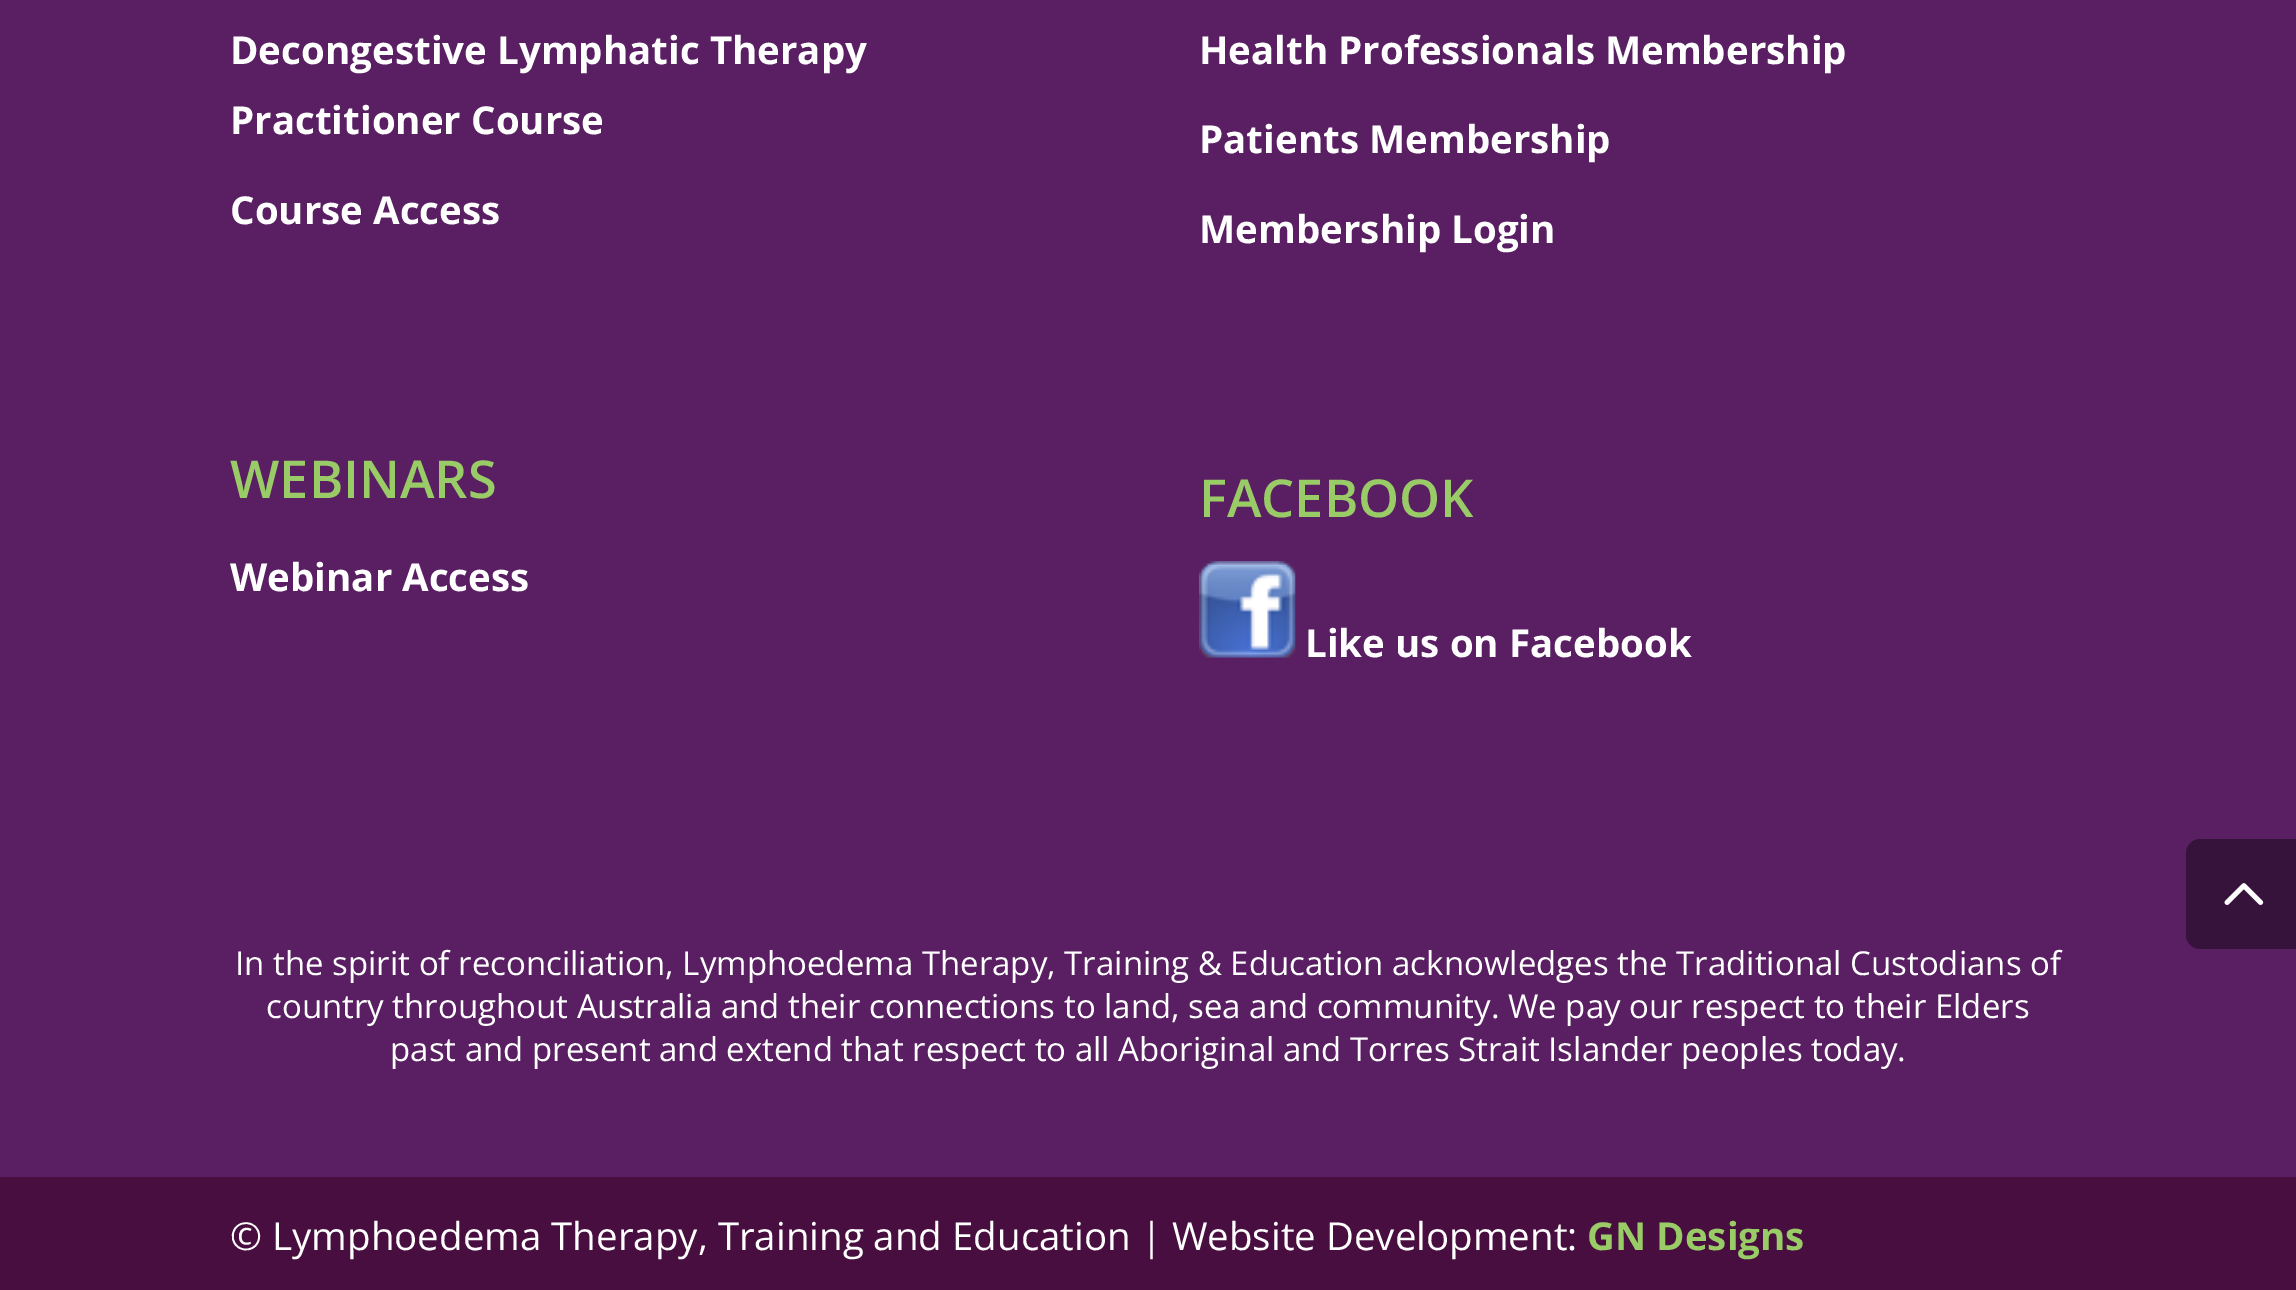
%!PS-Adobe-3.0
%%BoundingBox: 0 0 2296 1290
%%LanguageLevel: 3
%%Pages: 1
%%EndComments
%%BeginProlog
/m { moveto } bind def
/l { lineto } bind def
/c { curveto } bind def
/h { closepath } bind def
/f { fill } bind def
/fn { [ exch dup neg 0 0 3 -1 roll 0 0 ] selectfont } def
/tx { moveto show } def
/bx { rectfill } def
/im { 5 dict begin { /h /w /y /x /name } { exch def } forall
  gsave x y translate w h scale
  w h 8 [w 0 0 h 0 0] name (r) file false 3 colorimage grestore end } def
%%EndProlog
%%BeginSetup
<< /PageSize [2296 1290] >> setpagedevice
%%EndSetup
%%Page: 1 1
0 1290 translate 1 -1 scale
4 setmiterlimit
0.353 0.122 0.388 setrgbcolor
0 0 2296 1290 bx
/OpenSans-Bold 38.5 fn
1 setgray
(Decongestive Lymphatic Therapy) 230 64 tx
(Practitioner Course) 230 134 tx
(Course Access) 230 224 tx
/OpenSans-SemiBold 52.25 fn
0.6 0.8 0.4 setrgbcolor
(WEBINARS) 230 498 tx
/OpenSans-Bold 38.5 fn
1 setgray
(Webinar Access) 230 591 tx
(Health Professionals Membership) 1199 64 tx
(Patients Membership) 1199 153 tx
(Membership Login) 1199 243 tx
/OpenSans-SemiBold 52.25 fn
0.6 0.8 0.4 setrgbcolor
(FACEBOOK) 1199 517 tx
(image0.raw) 1199 561 97 97 im
/OpenSans-Bold 38.5 fn
1 setgray
(Like us on Facebook) 1305 657 tx
/OpenSans-Regular 33 fn
(In the spirit of reconciliation, Lymphoedema Therapy, Training & Education acknowledges the Traditional Custodians of) 235 975 tx
(country throughout Australia and their connections to land, sea and community. We pay our respect to their Elders) 266 1018 tx
(past and present and extend that respect to all Aboriginal and Torres Strait Islander peoples today.) 390 1061 tx
0.278 0.055 0.247 setrgbcolor
0 1177 2296 113 bx
/OpenSans-Regular 38.5 fn
1 setgray
(© Lymphoedema Therapy, Training and Education | Website Development:) 230 1250 tx
/OpenSans-Bold 38.5 fn
0.6 0.8 0.4 setrgbcolor
(GN Designs) 1587 1250 tx
0.212 0.075 0.231 setrgbcolor
2200 839 m 2296 839 l 2296 949 l 2200 949 l 2192.5 949 2186 942.5 2186 935 c 2186 853 l 2186 845.5 2192.5 839 2200 839 c h f
(image1.raw) 2224 883 40 22 im
showpage
%%EOF
